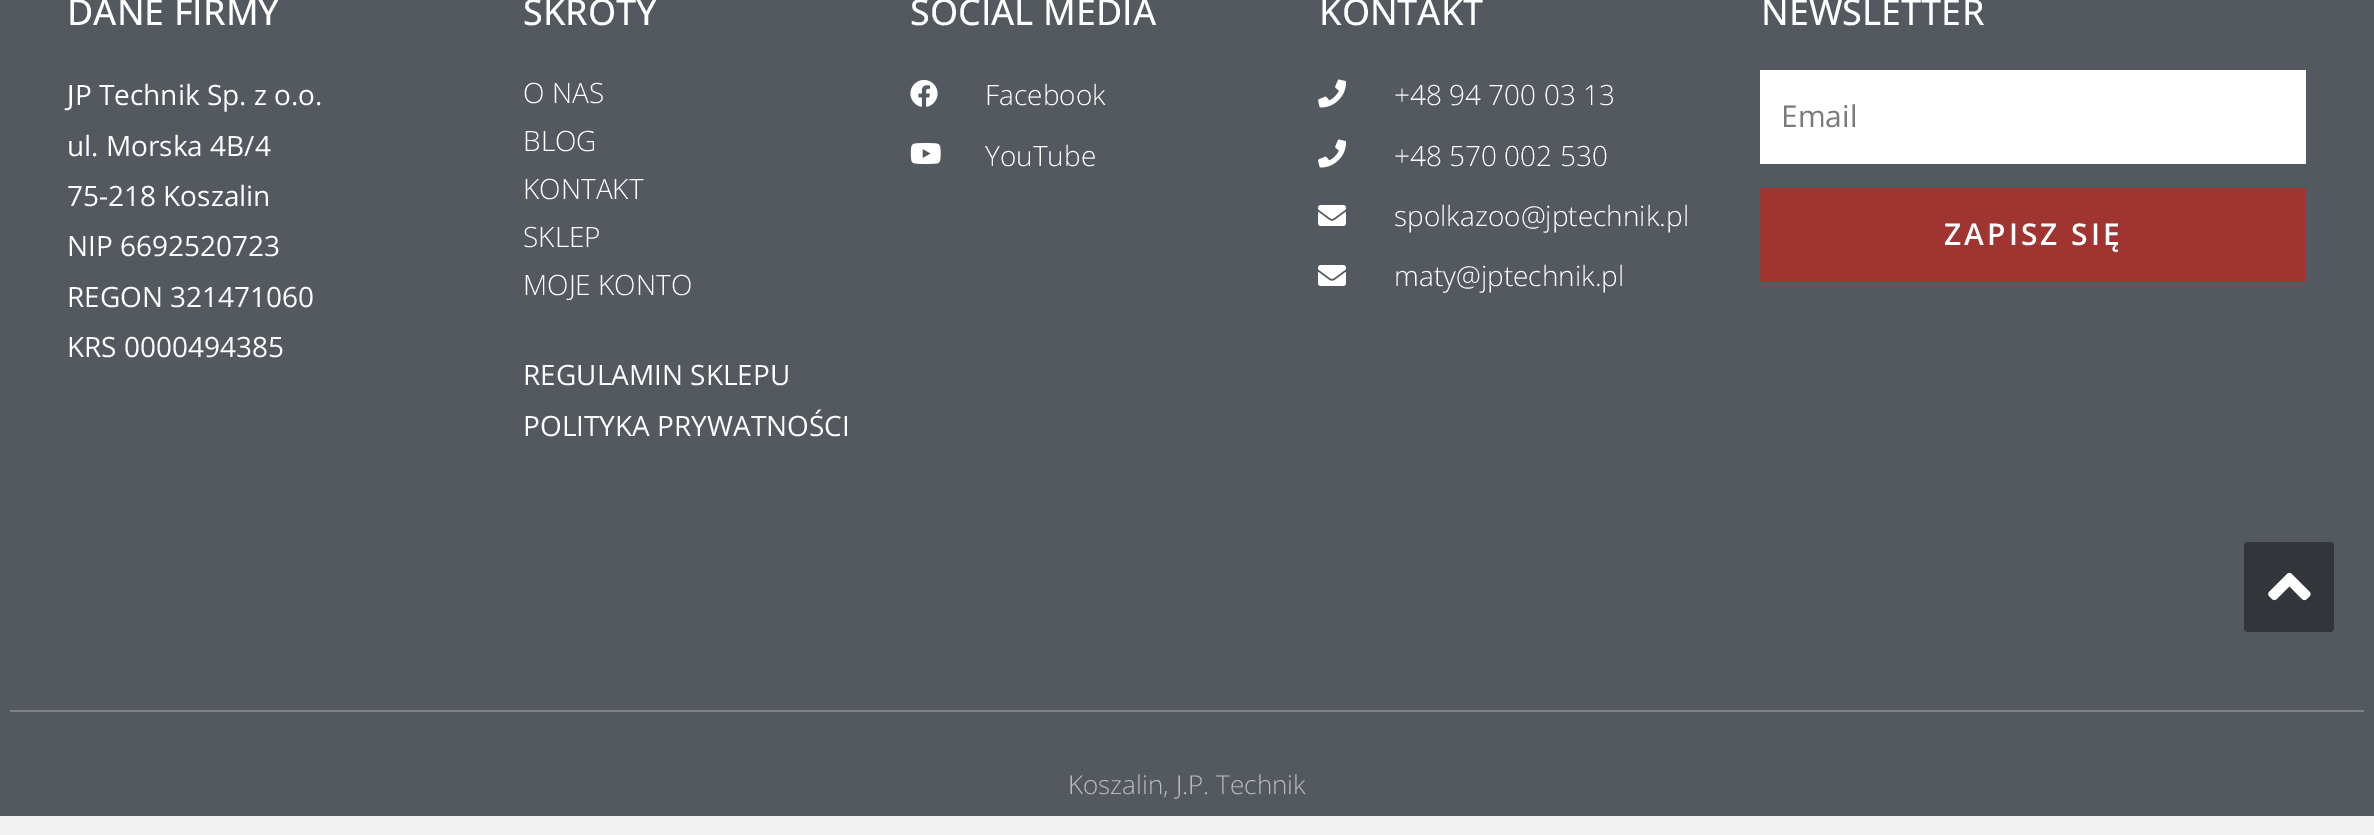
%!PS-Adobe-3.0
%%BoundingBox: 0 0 2374 835
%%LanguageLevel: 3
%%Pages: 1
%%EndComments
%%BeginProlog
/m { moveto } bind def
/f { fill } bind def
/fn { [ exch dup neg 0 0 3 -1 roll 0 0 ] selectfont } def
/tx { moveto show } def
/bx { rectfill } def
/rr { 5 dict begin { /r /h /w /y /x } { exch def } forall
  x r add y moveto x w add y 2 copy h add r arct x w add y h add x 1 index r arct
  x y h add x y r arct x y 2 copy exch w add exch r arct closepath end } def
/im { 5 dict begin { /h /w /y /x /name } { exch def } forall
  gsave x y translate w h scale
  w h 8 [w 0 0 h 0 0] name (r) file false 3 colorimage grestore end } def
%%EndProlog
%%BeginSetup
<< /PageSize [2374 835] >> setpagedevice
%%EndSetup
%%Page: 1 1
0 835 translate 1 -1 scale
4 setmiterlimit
0.945 setgray
0 0 2374 835 bx
0.329 0.349 0.373 setrgbcolor
0 0 2374 816 bx
/OpenSans-Medium 36 fn
1 setgray
(DANE FIRMY) 67 25 tx
/OpenSans-Regular 28 fn
(JP Technik Sp. z o.o.) 67 105 tx
(ul. Morska 4B/4) 67 156 tx
(75-218 Koszalin) 67 206 tx
(NIP 6692520723) 67 256 tx
(REGON 321471060) 67 307 tx
(KRS 0000494385) 67 357 tx
/OpenSans-Medium 36 fn
(SKRÓTY) 523 25 tx
/OpenSans-Light 28 fn
(O NAS) 523 103 tx
(BLOG) 523 151 tx
(KONTAKT) 523 199 tx
(SKLEP) 523 247 tx
(MOJE KONTO) 523 295 tx
/OpenSans-Regular 28 fn
(REGULAMIN SKLEPU) 523 385 tx
(POLITYKA PRYWATNOŚCI) 523 436 tx
/OpenSans-Medium 36 fn
(SOCIAL MEDIA) 910 25 tx
(image0.raw) 910 79 28 28 im
/OpenSans-Light 28 fn
(Facebook) 985 105 tx
(image1.raw) 910 143 31 21 im
(YouTube) 985 166 tx
/OpenSans-Medium 36 fn
(KONTAKT) 1319 25 tx
(image2.raw) 1318 79 29 29 im
/OpenSans-Light 28 fn
(+48 94 700 03 13) 1394 105 tx
(image2.raw) 1318 139 29 29 im
(+48 570 002 530) 1394 166 tx
(image3.raw) 1318 205 28 21 im
(spolkazoo@jptechnik.pl) 1394 226 tx
(image3.raw) 1318 265 28 21 im
(maty@jptechnik.pl) 1394 286 tx
/OpenSans-Medium 36 fn
(NEWSLETTER) 1761 25 tx
1760 70 546 94 bx
/OpenSans-Regular 30 fn
0.475 0.478 0.486 setrgbcolor
(Email) 1781 127 tx
0.627 0.204 0.192 setrgbcolor
1760 188 546 94 bx
/OpenSans-SemiBold 30 fn
1 setgray
1944 245 m 3 0 (ZAPISZ SIĘ) ashow
0.498 0.514 0.529 setrgbcolor
10 710 2354 2 bx
/OpenSans-Light 26 fn
0.725 0.733 0.741 setrgbcolor
(Koszalin, J.P. Technik) 1068 794 tx
0.196 0.208 0.224 setrgbcolor
2244 542 90 90 4 rr f
(image4.raw) 2268 572 43 29 im
showpage
%%EOF
